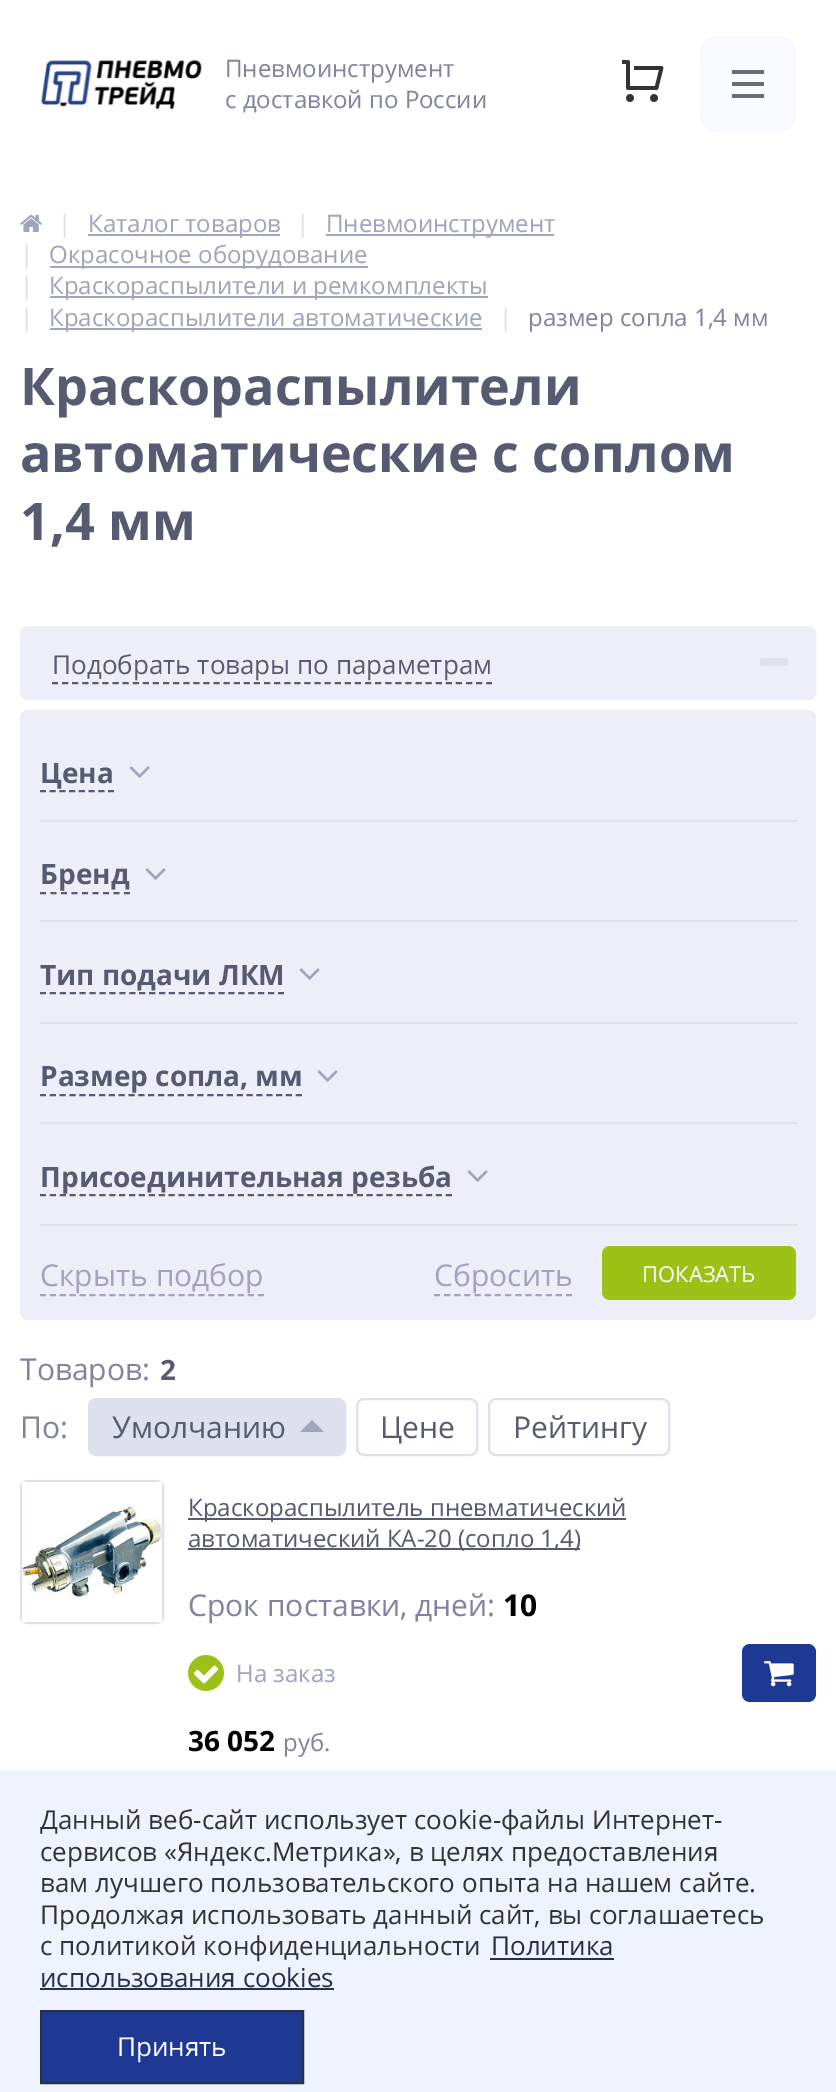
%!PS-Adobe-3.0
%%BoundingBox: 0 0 836 2092
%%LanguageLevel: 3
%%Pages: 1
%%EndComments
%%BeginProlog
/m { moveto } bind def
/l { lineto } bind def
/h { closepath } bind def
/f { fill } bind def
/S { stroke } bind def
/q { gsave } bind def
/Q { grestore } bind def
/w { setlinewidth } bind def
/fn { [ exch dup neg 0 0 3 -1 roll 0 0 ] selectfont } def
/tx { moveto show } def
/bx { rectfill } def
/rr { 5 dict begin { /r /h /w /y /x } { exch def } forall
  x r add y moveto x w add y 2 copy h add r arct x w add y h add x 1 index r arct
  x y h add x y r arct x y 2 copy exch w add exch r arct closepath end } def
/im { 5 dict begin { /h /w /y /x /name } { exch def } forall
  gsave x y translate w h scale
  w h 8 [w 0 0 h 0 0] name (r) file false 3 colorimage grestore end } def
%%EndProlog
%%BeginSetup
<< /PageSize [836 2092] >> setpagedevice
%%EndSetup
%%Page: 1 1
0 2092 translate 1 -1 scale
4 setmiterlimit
1 setgray
0 0 836 2092 bx
(image0.raw) 41 59 161 51 im
/OpenSans-Regular 24 fn
0.506 0.518 0.631 setrgbcolor
(Пневмоинструмент) 225 77 tx
(с доставкой по России) 225 108 tx
(image1.raw) 622 60 42 42 im
0.976 0.98 1 setrgbcolor
700 36 96 96 16 rr f
0.416 0.427 0.451 setrgbcolor
732 82 32 4 bx
732 70 32 4 bx
732 94 32 4 bx
(image2.raw) 20 214 22 18 im
0.871 0.878 0.933 setrgbcolor
(|) 58 232 tx
0.627 0.643 0.737 setrgbcolor
88 234 192 2 bx
(Каталог товаров) 88 232 tx
0.871 0.878 0.933 setrgbcolor
(|) 296 232 tx
0.627 0.643 0.737 setrgbcolor
326 234 228 2 bx
(Пневмоинструмент) 326 232 tx
0.871 0.878 0.933 setrgbcolor
(|) 20 263 tx
0.627 0.643 0.737 setrgbcolor
50 266 318 2 bx
(Окрасочное оборудование) 49 263 tx
0.871 0.878 0.933 setrgbcolor
(|) 20 294 tx
0.627 0.643 0.737 setrgbcolor
50 296 438 2 bx
(Краскораспылители и ремкомплекты) 49 294 tx
0.871 0.878 0.933 setrgbcolor
(|) 20 326 tx
0.627 0.643 0.737 setrgbcolor
50 328 432 2 bx
(Краскораспылители автоматические) 49 326 tx
0.871 0.878 0.933 setrgbcolor
(|) 499 326 tx
0.506 0.518 0.631 setrgbcolor
(размер сопла 1,4 мм) 528 326 tx
/OpenSans-Bold 52 fn
0.341 0.357 0.443 setrgbcolor
(Краскораспылители) 20 405 tx
(автоматические с соплом) 20 472 tx
(1,4 мм) 20 540 tx
0.929 0.933 0.973 setrgbcolor
22 628 792 70 6 rr q f Q
4 w
S
/OpenSans-Regular 26 fn
0.341 0.357 0.443 setrgbcolor
(Подобрать товары по параметрам) 52 674 tx
2 w
[6 4.1] 0 setdash
52 683 m 492 683 l S
(image3.raw) 760 658 29 8 im
0.929 0.933 0.973 setrgbcolor
20 710 796 610 8 rr f
0.871 0.878 0.933 setrgbcolor
40 820 758 2 bx
/OpenSans-Bold 28 fn
0.341 0.357 0.443 setrgbcolor
(Цена) 40 783 tx
[6 3.72] 0 setdash
40 791 m 114 791 l S
(image4.raw) 129 766 21 12 im
0.871 0.878 0.933 setrgbcolor
40 920 758 2 bx
0.341 0.357 0.443 setrgbcolor
(Бренд) 40 884 tx
[6 4.5] 0 setdash
40 893 m 130 893 l S
(image4.raw) 145 868 21 12 im
0.871 0.878 0.933 setrgbcolor
40 1022 758 2 bx
0.341 0.357 0.443 setrgbcolor
(Тип подачи ЛКМ) 40 985 tx
[6 3.92] 0 setdash
40 993 m 284 993 l S
(image4.raw) 299 968 21 12 im
0.871 0.878 0.933 setrgbcolor
40 1122 758 2 bx
0.341 0.357 0.443 setrgbcolor
(Размер сопла, мм) 40 1086 tx
[6 3.84] 0 setdash
40 1095 m 302 1095 l S
(image4.raw) 317 1070 21 12 im
0.871 0.878 0.933 setrgbcolor
40 1224 758 2 bx
0.341 0.357 0.443 setrgbcolor
(Присоединительная резьба) 40 1187 tx
[6 3.9] 0 setdash
40 1195 m 452 1195 l S
(image4.raw) 467 1170 21 12 im
0.627 0.643 0.737 setrgbcolor
40 1295 m 264 1295 l S
/OpenSans-Regular 30 fn
(Скрыть подбор) 40 1286 tx
[6 4.16] 0 setdash
434 1295 m 572 1295 l S
(Сбросить) 434 1286 tx
0.612 0.761 0.094 setrgbcolor
602 1246 194 54 8 rr f
/OpenSans-Regular 22 fn
1 setgray
(ПОКАЗАТЬ) 642 1282 tx
/OpenSans-Regular 30 fn
0.506 0.518 0.631 setrgbcolor
(Товаров:) 20 1380 tx
/OpenSans-Bold 28 fn
0.341 0.357 0.443 setrgbcolor
(2) 160 1380 tx
/OpenSans-Regular 30 fn
0.506 0.518 0.631 setrgbcolor
(По:) 20 1438 tx
0.871 0.878 0.933 setrgbcolor
89 1399 256 56 7 rr q f Q
[] 0 setdash
S
0.341 0.357 0.443 setrgbcolor
(Умолчанию) 112 1438 tx
0.627 0.643 0.737 setrgbcolor
324 1432 m 300 1432 l 312 1420 l h f
0.871 0.878 0.933 setrgbcolor
357 1399 120 56 7 rr S
0.341 0.357 0.443 setrgbcolor
(Цене) 380 1438 tx
0.871 0.878 0.933 setrgbcolor
489 1399 180 56 7 rr S
0.341 0.357 0.443 setrgbcolor
(Рейтингу) 513 1438 tx
0.871 0.878 0.933 setrgbcolor
21 1481 142 142 7 rr S
(image5.raw) 22 1482 140 140 im
0.341 0.357 0.443 setrgbcolor
188 1518 438 2 bx
/OpenSans-Regular 24 fn
(Краскораспылитель пневматический) 188 1516 tx
188 1548 392 2 bx
(автоматический КА-20 \(сопло 1,4\)) 188 1547 tx
/OpenSans-Regular 30 fn
0.506 0.518 0.631 setrgbcolor
(Срок поставки, дней:) 188 1616 tx
/OpenSans-Bold 30 fn
0 setgray
(10) 503 1616 tx
(image6.raw) 188 1655 36 36 im
/OpenSans-Regular 24 fn
0.627 0.643 0.737 setrgbcolor
(На заказ) 236 1682 tx
0.118 0.224 0.58 setrgbcolor
742 1644 74 58 8 rr f
(image7.raw) 764 1661 30 26 im
/OpenSans-Bold 28 fn
0 setgray
(36 052) 188 1751 tx
/OpenSans-Regular 24 fn
0.506 0.518 0.631 setrgbcolor
(руб.) 283 1751 tx
0.937 0.953 1 setrgbcolor
0 1770 836 322 bx
/OpenSans-Regular 26 fn
0.2 setgray
(Данный веб-сайт использует cookie-файлы Интернет-) 40 1829 tx
(сервисов «Яндекс.Метрика», в целях предоставления) 40 1861 tx
(вам лучшего пользовательского опыта на нашем сайте.) 40 1892 tx
(Продолжая использовать данный сайт, вы соглашаетесь) 40 1924 tx
(с политикой конфиденциальности) 40 1955 tx
0.149 0.188 0.286 setrgbcolor
(Политика) 491 1955 tx
490 1958 124 2 bx
(использования cookies) 40 1987 tx
40 1988 294 2 bx
0.118 0.224 0.58 setrgbcolor
41 2011 m 303 2011 l 303 2083 l 41 2083 l h q f Q
0.149 0.188 0.286 setrgbcolor
S
1 setgray
(Принять) 117 2056 tx
showpage
%%EOF
